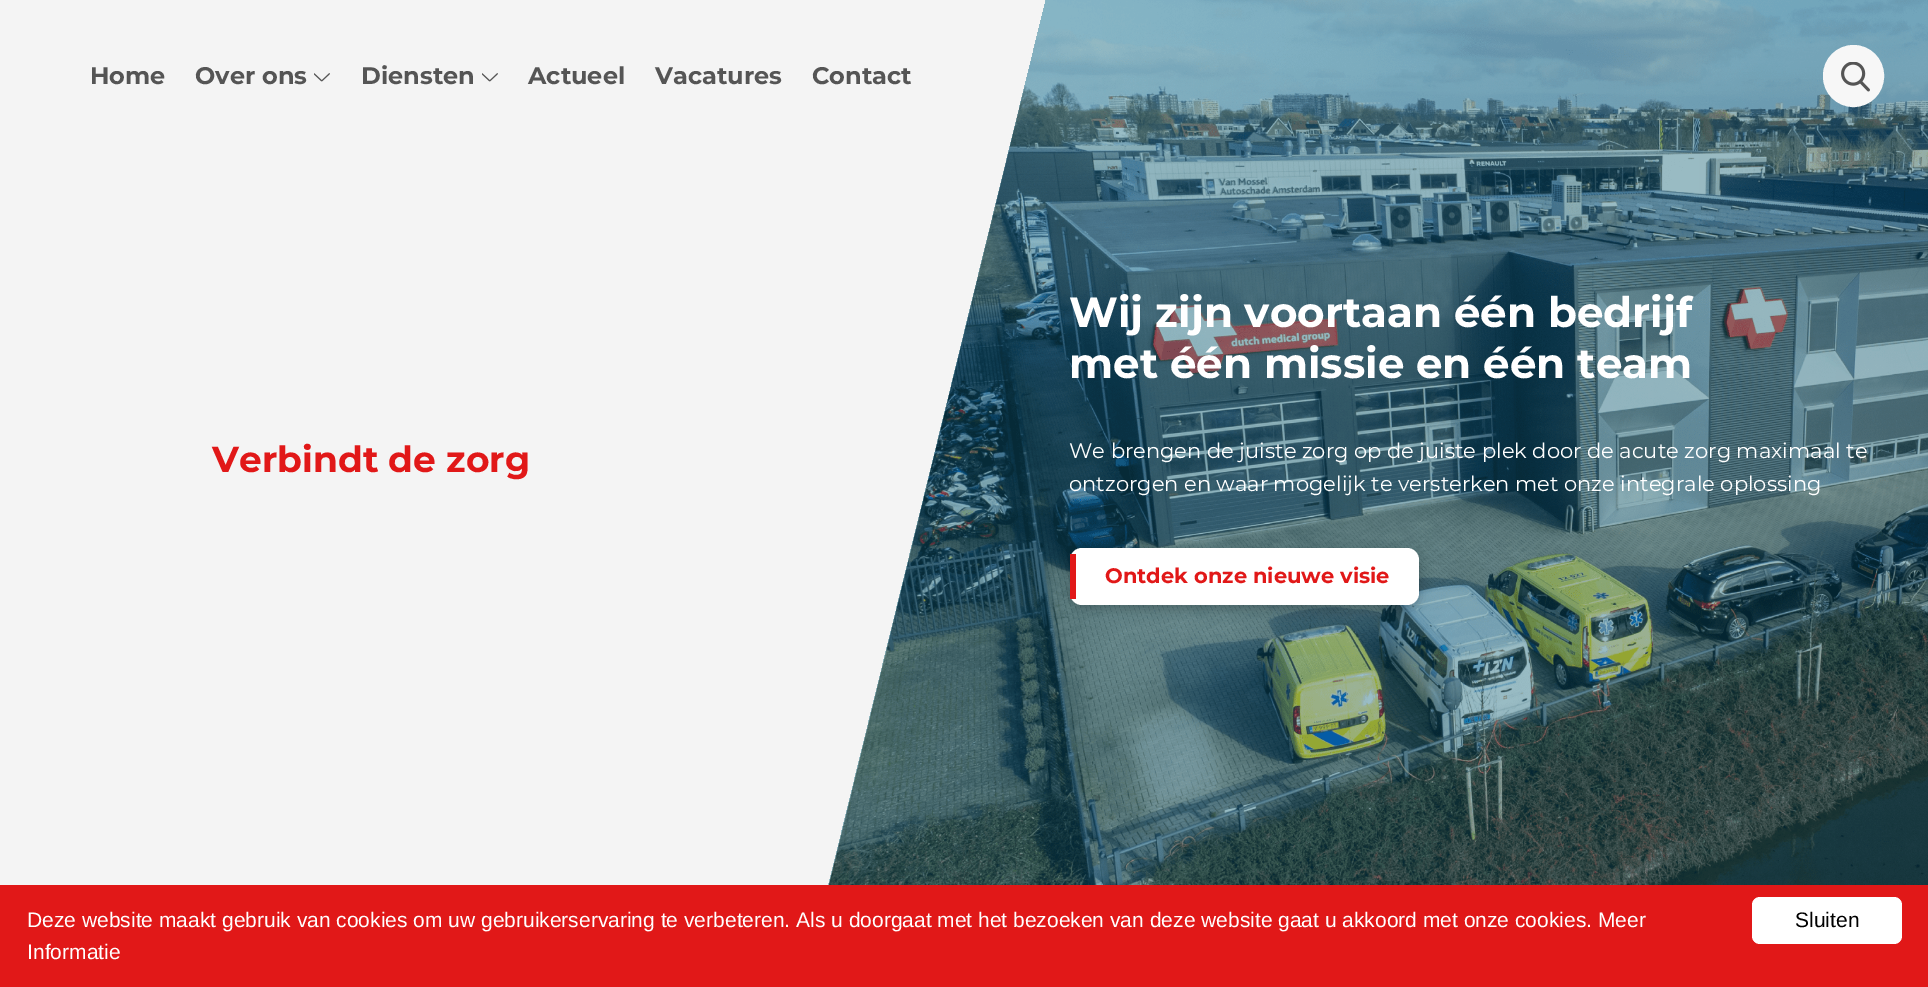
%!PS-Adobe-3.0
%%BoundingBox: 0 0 1928 987
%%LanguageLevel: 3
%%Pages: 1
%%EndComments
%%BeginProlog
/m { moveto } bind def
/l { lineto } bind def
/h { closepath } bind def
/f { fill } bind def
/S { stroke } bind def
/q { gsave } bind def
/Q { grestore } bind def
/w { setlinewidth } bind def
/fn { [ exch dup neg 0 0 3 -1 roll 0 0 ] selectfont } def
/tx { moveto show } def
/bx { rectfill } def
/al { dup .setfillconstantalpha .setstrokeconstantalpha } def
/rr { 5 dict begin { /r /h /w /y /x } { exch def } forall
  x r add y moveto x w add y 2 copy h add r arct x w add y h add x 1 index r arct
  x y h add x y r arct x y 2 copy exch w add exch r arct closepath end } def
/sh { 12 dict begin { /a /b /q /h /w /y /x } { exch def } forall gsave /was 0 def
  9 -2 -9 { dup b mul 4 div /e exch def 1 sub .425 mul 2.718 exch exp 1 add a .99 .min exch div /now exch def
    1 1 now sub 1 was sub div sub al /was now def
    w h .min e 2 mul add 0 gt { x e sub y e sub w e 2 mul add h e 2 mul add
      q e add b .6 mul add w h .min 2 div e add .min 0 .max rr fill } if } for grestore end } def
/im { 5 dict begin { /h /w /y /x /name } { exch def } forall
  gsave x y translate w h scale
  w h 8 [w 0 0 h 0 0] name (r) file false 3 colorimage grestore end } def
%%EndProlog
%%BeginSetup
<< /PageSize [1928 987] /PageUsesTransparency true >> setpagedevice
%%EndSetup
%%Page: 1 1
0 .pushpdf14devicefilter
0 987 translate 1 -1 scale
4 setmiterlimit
0.957 setgray
0 0 1928 987 bx
/Montserrat-Bold 24 fn
0.333 setgray
(Home) 90 84 tx
(Over ons) 195 84 tx
(image0.raw) 314 73 16 9 im
(Diensten) 361 84 tx
(image0.raw) 482 73 16 9 im
(Actueel) 528 84 tx
(Vacatures) 655 84 tx
(image2.raw) 828 0 1100 885 im
0.4 al
q 827 892 m 1047 -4 l 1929 -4 l 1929 896 l 827 896 l h clip newpath
<< /ShadingType 2 /ColorSpace /DeviceRGB /Coords [827 446 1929 446] /Extend [true true] /Function << /FunctionType 2 /Domain [0 1] /C0 [0.039 0.408 0.498] /C1 [0.004 0.322 0.4] /N 1 >> >> shfill Q
1 al
(Contact) 812 84 tx
0.969 setgray
1824 46 59 60 29.5 rr q f Q
2 w
S
(image1.raw) 1841 62 29 30 im
/Montserrat-Bold 36 fn
0.882 0.094 0.094 setrgbcolor
(Verbindt de zorg) 212 472 tx
/Montserrat-Bold 42 fn
1 setgray
(Wij zijn voortaan één bedrijf) 1069 327 tx
(met één missie en één team) 1069 378 tx
/Montserrat-Regular 21 fn
(We brengen de juiste zorg op de juiste plek door de acute zorg maximaal te) 1069 458 tx
(ontzorgen en waar mogelijk te versterken met onze integrale oplossing) 1069 491 tx
0 setgray
1070 552 349 57 12 6 0.24 sh
1 setgray
1070 548 349 57 12 rr f
0.882 0.094 0.094 setrgbcolor
1070 554 6 45 bx
/Montserrat-Bold 21 fn
(Ontdek onze nieuwe visie) 1105 583 tx
0 885 1928 102 bx
/LiberationSans-Regular 21 fn
1 setgray
(Deze website maakt gebruik van cookies om uw gebruikerservaring te verbeteren. Als u doorgaat met het bezoeken van deze website gaat u akkoord met onze cookies. Meer) 27 927 tx
(Informatie) 27 959 tx
1752 897 150 47 8 rr f
0 setgray
(Sluiten) 1795 927 tx
.poppdf14devicefilter showpage
%%EOF
